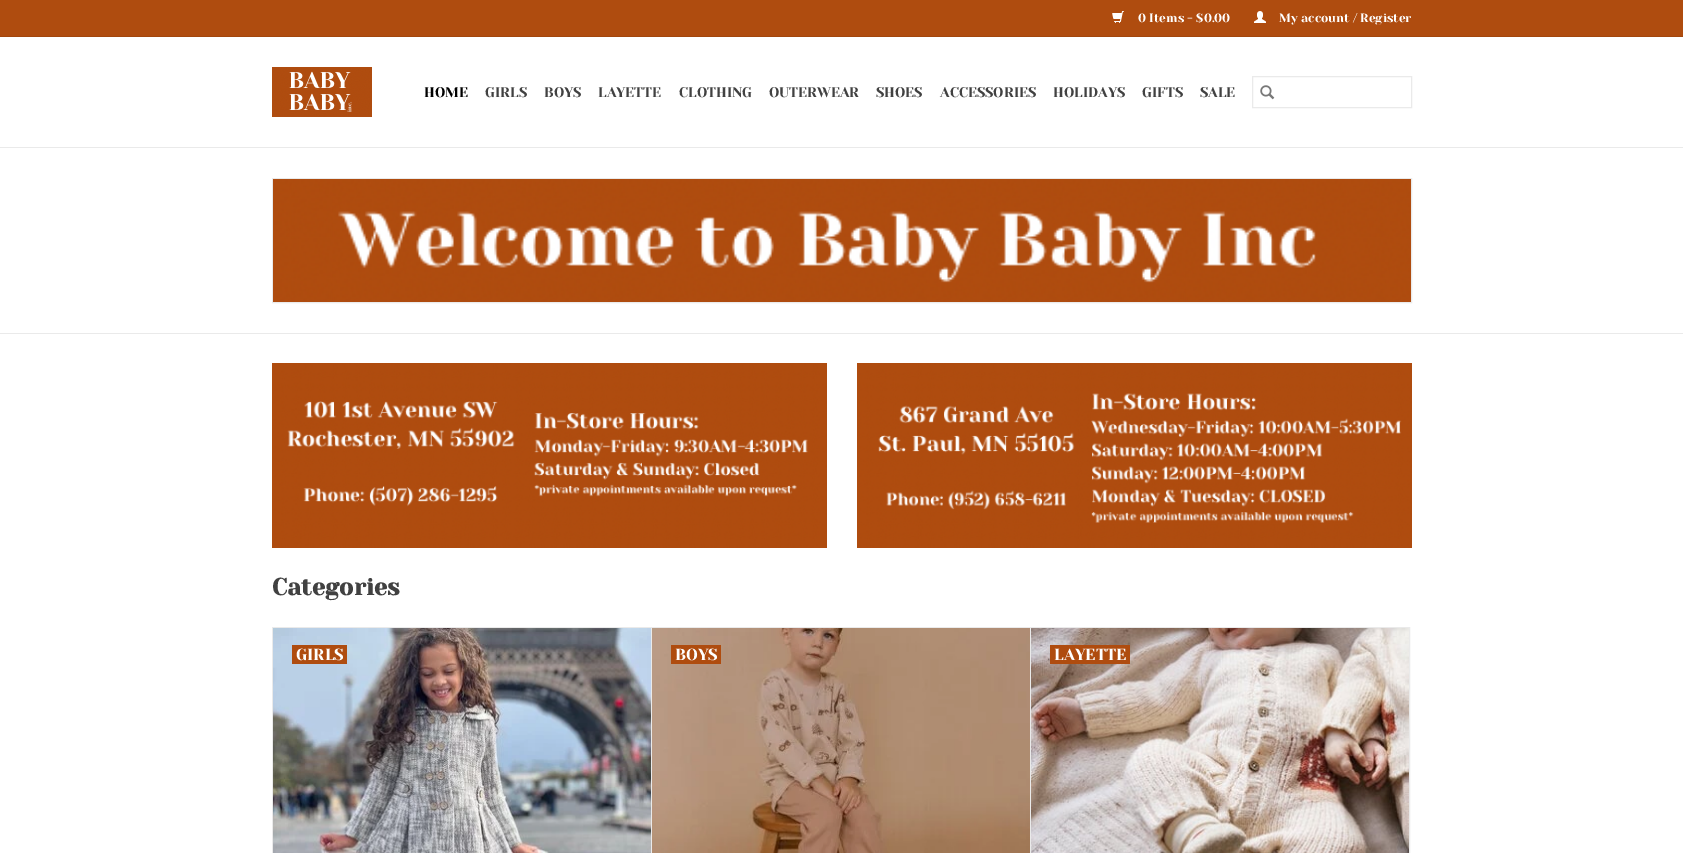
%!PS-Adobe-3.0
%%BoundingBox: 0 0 1683 853
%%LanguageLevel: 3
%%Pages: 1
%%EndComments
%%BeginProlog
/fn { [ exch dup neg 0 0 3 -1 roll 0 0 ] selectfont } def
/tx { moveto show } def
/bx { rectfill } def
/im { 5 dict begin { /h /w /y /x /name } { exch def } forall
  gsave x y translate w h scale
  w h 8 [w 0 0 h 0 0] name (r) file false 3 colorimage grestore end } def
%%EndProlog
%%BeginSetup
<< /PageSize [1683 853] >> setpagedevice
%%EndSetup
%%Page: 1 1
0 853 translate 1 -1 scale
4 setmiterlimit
1 setgray
0 0 1683 853 bx
0.918 setgray
0 147 1683 1 bx
0.686 0.298 0.059 setrgbcolor
0 0 1683 36 bx
0.635 0.275 0.051 setrgbcolor
0 36 1683 1 bx
(image0.raw) 1112 11 12 12 im
/YesevaOne-Regular 12 fn
1 setgray
(0 Items - $0.00) 1138 22 tx
(image1.raw) 1254 11 12 12 im
(My account / Register) 1279 22 tx
(image2.raw) 272 67 100 50 im
/YesevaOne-Regular 14 fn
0 setgray
(HOME) 424 97 tx
0.255 setgray
(GIRLS) 485 97 tx
(BOYS) 544 97 tx
(LAYETTE) 598 97 tx
(CLOTHING) 679 97 tx
(OUTERWEAR) 769 97 tx
(SHOES) 876 97 tx
(ACCESSORIES) 940 97 tx
(HOLIDAYS) 1053 97 tx
(GIFTS) 1142 97 tx
(SALE) 1200 97 tx
0.918 setgray
1252.5 76.5 159 31 rectstroke
(image3.raw) 1260 85 15 15 im
272.5 178.5 1139 124 rectstroke
(image4.raw) 273 179 1138 123 im
0 333 1683 1 bx
(image5.raw) 272 363 555 185 im
(image6.raw) 857 363 555 185 im
/YesevaOne-Bold 23.5 fn
0.255 setgray
(Categories) 272 595 tx
0.918 setgray
272.5 627.5 379 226 rectstroke
(image7.raw) 273 628 378 225 im
0.686 0.298 0.059 setrgbcolor
292 645 51 19 bx
/YesevaOne-Regular 16 fn
1 setgray
(GIRLS) 296 660 tx
0.686 0.298 0.059 setrgbcolor
343 645 4 19 bx
0.918 setgray
651.5 627.5 379 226 rectstroke
(image8.raw) 652 628 378 225 im
0.686 0.298 0.059 setrgbcolor
671 645 46 19 bx
1 setgray
(BOYS) 675 660 tx
0.686 0.298 0.059 setrgbcolor
717 645 4 19 bx
0.918 setgray
1030.5 627.5 379 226 rectstroke
(image9.raw) 1031 628 378 225 im
0.686 0.298 0.059 setrgbcolor
1050 645 76 19 bx
1 setgray
(LAYETTE) 1054 660 tx
0.686 0.298 0.059 setrgbcolor
1126 645 4 19 bx
showpage
%%EOF
